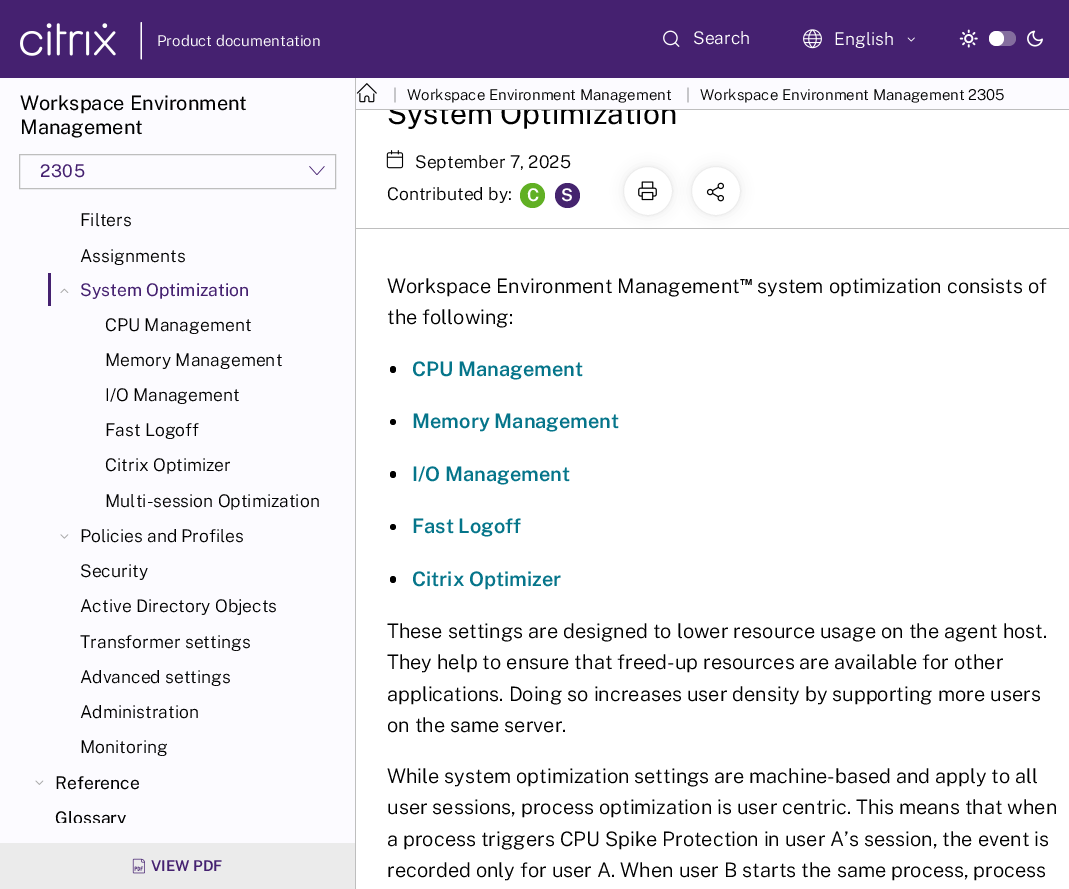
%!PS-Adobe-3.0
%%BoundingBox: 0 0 1069 889
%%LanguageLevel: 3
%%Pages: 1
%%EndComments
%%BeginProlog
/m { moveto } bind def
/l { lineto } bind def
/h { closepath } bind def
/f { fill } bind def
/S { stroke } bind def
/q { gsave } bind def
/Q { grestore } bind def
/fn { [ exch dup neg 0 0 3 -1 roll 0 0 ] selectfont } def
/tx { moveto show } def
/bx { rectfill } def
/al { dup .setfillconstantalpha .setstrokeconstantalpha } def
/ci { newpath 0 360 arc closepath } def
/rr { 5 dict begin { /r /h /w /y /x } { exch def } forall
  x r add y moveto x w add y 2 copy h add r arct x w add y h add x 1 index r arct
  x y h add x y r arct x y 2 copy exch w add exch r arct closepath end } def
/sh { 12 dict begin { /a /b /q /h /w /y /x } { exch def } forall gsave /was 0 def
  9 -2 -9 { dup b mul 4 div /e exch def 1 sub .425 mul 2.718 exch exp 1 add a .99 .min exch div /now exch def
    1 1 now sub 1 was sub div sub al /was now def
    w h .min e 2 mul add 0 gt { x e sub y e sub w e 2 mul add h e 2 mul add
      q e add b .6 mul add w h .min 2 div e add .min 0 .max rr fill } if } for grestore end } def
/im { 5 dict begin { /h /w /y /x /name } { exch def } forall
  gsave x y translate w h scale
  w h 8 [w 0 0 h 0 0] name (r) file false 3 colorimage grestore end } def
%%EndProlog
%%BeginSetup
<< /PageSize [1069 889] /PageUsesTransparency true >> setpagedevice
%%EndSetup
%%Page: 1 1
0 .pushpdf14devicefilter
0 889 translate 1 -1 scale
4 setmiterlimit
1 setgray
0 0 1069 889 bx
0.271 0.129 0.439 setrgbcolor
0 0 1069 78 bx
(image0.raw) 20 23 96 33 im
1 setgray
141.5 22 m 140.5 22.5 l 140.5 59 l 141.5 59.5 l 142 59 l 142 22.5 l h f
/PublicSans-Light 15 fn
(Product documentation) 157 46 tx
(image1.raw) 663 30 17 17 im
/PublicSans-Light 17.5 fn
(Search) 693 44 tx
(image2.raw) 803 29 19 20 im
(English) 834 45 tx
(image3.raw) 907 37 8 5 im
(image4.raw) 959 29 19 19 im
0.518 0.431 0.62 setrgbcolor
989 31 27 15 7.5 rr f
1 setgray
996.5 38.5 7.5 ci f
(image5.raw) 1027 30 16 17 im
0.988 0.984 1 setrgbcolor
0 78 355 765 bx
0.745 setgray
355 78 1 811 bx
/PublicSans-Regular 20 fn
0 setgray
(Workspace Environment) 20 110 tx
(Management) 20 134 tx
0.745 setgray
19.5 154.5 316 34 rectstroke
/PublicSans-Regular 17.5 fn
0.271 0.129 0.439 setrgbcolor
40 177 m 0.5 0 (2305) ashow
(image6.raw) 309 166 16 9 im
/PublicSans-Light 17.5 fn
0 setgray
(Filters) 80 226 tx
(Assignments) 80 262 tx
0.271 0.129 0.439 setrgbcolor
48 273 3 33 bx
(image7.raw) 60 288 9 5 im
/PublicSans-Regular 17.5 fn
(System Optimization) 80 296 tx
/PublicSans-Light 17.5 fn
0 setgray
(CPU Management) 105 331 tx
(Memory Management) 105 366 tx
(I/O Management) 105 401 tx
(Fast Logoff) 105 436 tx
(Citrix Optimizer) 105 471 tx
(Multi-session Optimization) 105 507 tx
(image8.raw) 60 534 9 5 im
(Policies and Profiles) 80 542 tx
(Security) 80 577 tx
(Active Directory Objects) 80 612 tx
(Transformer settings) 80 648 tx
(Advanced settings) 80 683 tx
(Administration) 80 718 tx
(Monitoring) 80 753 tx
(image9.raw) 35 780 9 5 im
/PublicSans-Regular 17.5 fn
(Reference) 55 789 tx
q
23 195 332 628 rectclip
(Glossary) 55 824 tx
Q
0.922 setgray
0 843 355 46 bx
(image10.raw) 132 858 13 16 im
/PublicSans-SemiBold 15 fn
0.271 0.129 0.439 setrgbcolor
(VIEW PDF) 151 871 tx
/PublicSans-Regular 30 fn
0 setgray
(System Optimization) 387 124 tx
0.988 0.984 1 setrgbcolor
356 78 713 31 bx
0.745 setgray
356 109 713 1 bx
(image11.raw) 356 83 21 20 im
/PublicSans-Light 15 fn
0.592 0.592 0.6 setrgbcolor
(|) 393 100 tx
0 setgray
(Workspace Environment Management) 407 100 tx
0.592 0.592 0.6 setrgbcolor
(|) 686 100 tx
0 setgray
(Workspace Environment Management 2305) 700 100 tx
0.745 setgray
356 228 713 1 bx
(image12.raw) 386 150 18 19 im
/PublicSans-Light 17.5 fn
0 setgray
(September 7, 2025) 415 168 tx
(Contributed by:) 387 200 tx
0.38 0.69 0.141 setrgbcolor
532.5 195.5 12.5 ci f
/PublicSans-SemiBold 17.5 fn
1 setgray
(C) 527 201 tx
0.271 0.141 0.431 setrgbcolor
567.5 195.5 12.5 ci f
1 setgray
(S) 561 201 tx
0 setgray
623 166 50 50 25 6 0.07 sh
1 setgray
648 191 25 ci f
0.07 al
0 setgray
648 191 24.5 ci S
1 al
(image13.raw) 638 181 19 20 im
691 166 50 50 25 6 0.07 sh
1 setgray
716 191 25 ci f
0.07 al
0 setgray
716 191 24.5 ci S
1 al
(image14.raw) 706 182 18 20 im
/PublicSans-Light 20 fn
(Workspace Environment Management) 387 293 tx
/PublicSans-Bold 13 fn
(™) 740 285 tx
/PublicSans-Light 20 fn
(system optimization consists of) 757 293 tx
(the following:) 387 324 tx
390 366 6 7 3 rr f
/PublicSans-SemiBold 20 fn
0.02 0.459 0.541 setrgbcolor
(CPU Management) 412 376 tx
0 setgray
393 422 3 ci f
0.02 0.459 0.541 setrgbcolor
(Memory Management) 412 428 tx
0 setgray
390 471 6 7 3 rr f
0.02 0.459 0.541 setrgbcolor
(I/O Management) 412 481 tx
0 setgray
393 527 3 ci f
0.02 0.459 0.541 setrgbcolor
(Fast Logoff) 412 533 tx
0 setgray
390 576 6 7 3 rr f
0.02 0.459 0.541 setrgbcolor
(Citrix Optimizer) 412 586 tx
/PublicSans-Light 20 fn
0 setgray
(These settings are designed to lower resource usage on the agent host.) 387 638 tx
(They help to ensure that freed-up resources are available for other) 387 669 tx
(applications. Doing so increases user density by supporting more users) 387 701 tx
(on the same server.) 387 732 tx
(While system optimization settings are machine-based and apply to all) 387 783 tx
(user sessions, process optimization is user centric. This means that when) 387 814 tx
(a process triggers CPU Spike Protection in user A’s session, the event is) 387 846 tx
(recorded only for user A. When user B starts the same process, process) 387 877 tx
.poppdf14devicefilter showpage
%%EOF
